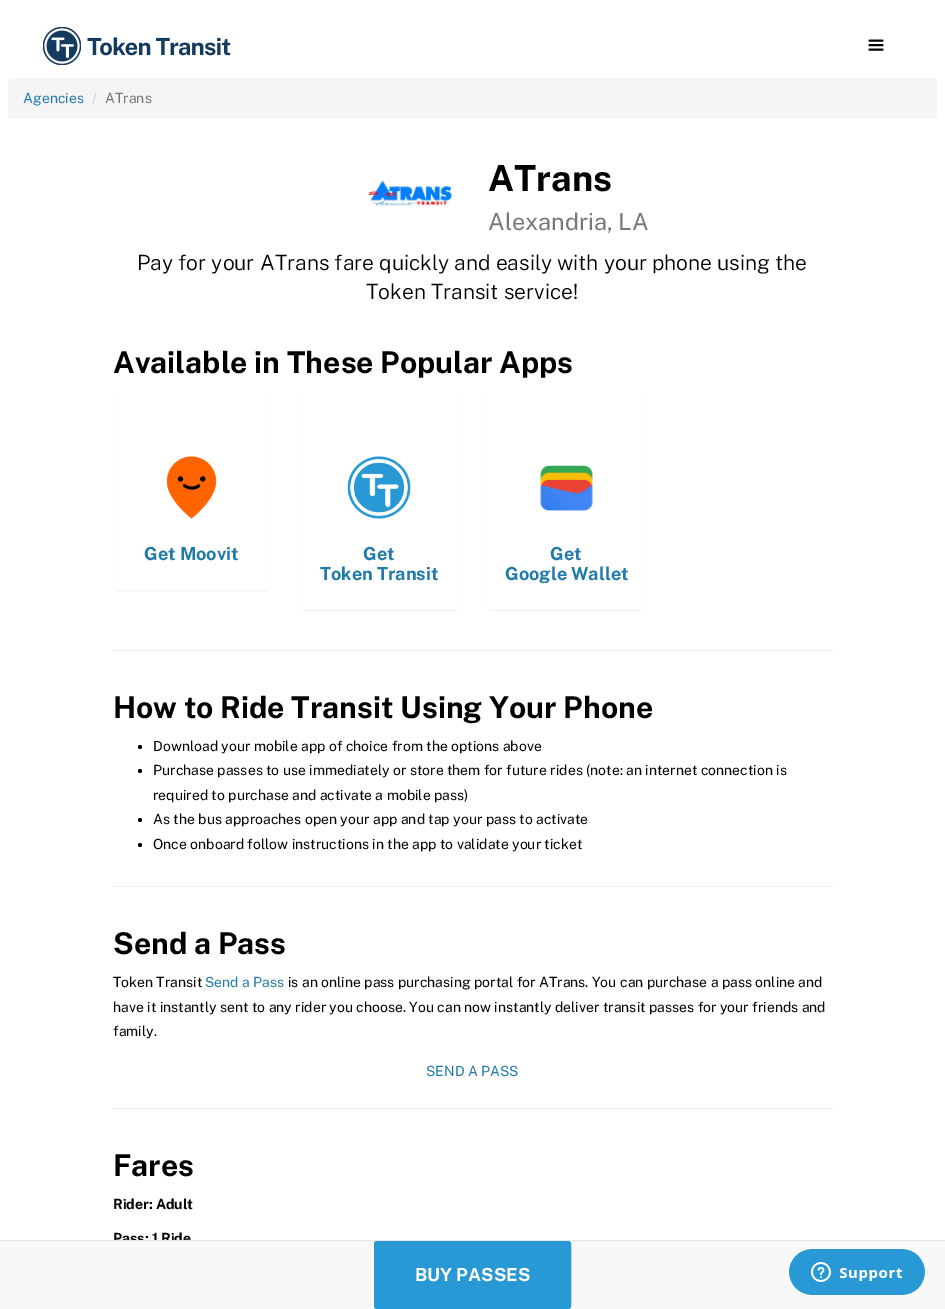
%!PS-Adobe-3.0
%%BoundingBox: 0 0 945 1309
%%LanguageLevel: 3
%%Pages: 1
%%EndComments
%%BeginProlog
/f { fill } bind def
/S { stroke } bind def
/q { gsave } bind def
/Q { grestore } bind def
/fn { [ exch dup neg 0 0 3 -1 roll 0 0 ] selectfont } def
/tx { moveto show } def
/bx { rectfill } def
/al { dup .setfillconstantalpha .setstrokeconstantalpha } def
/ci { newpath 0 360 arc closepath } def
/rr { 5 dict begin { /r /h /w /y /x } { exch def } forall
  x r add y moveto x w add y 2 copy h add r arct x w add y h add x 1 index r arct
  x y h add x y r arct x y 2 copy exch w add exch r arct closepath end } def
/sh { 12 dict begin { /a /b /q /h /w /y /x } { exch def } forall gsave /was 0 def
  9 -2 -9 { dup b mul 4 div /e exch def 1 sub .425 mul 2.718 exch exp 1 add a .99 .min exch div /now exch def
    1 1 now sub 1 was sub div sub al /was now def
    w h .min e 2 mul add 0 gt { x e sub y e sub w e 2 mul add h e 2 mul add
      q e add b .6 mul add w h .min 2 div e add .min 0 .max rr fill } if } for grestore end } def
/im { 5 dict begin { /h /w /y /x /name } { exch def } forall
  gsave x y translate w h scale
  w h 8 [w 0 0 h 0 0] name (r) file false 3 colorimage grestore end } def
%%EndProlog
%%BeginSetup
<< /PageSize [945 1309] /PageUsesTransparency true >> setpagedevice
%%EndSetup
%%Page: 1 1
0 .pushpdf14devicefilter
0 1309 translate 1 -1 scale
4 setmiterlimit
1 setgray
0 0 945 1309 bx
(image0.raw) 43 27 188 38 im
(image1.raw) 868 39 16 12 im
0.961 setgray
8 78 929 41 4 rr f
/PublicSans-Regular 14 fn
0.125 0.478 0.663 setrgbcolor
(Agencies) 23 103 tx
0.8 setgray
(/) 92 103 tx
0.467 setgray
(ATrans) 105 103 tx
(image2.raw) 368 180 84 26 im
/PublicSans-Bold 36 fn
0 setgray
(ATrans) 488 191 tx
/PublicSans-Regular 23.5 fn
0.467 setgray
(Alexandria, LA) 488 230 tx
/PublicSans-Light 21 fn
0 setgray
(Pay for your ATrans fare quickly and easily with your phone using the) 137 270 tx
(Token Transit service!) 366 299 tx
/PublicSans-Bold 30 fn
(Available in These Popular Apps) 113 373 tx
113 390 157 201 4 0.5 0.05 sh
1 setgray
113 389 157 201 4 rr f
(image3.raw) 166 456 51 63 im
/PublicSans-Bold 18 fn
0.125 0.478 0.663 setrgbcolor
(Get Moovit) 144 560 tx
0 setgray
300 390 158 221 4 0.5 0.05 sh
1 setgray
300 389 158 221 4 rr f
(image4.raw) 347 456 64 63 im
0.125 0.478 0.663 setrgbcolor
(Get) 363 560 tx
(Token Transit) 320 580 tx
0 setgray
488 390 157 221 4 0.5 0.05 sh
1 setgray
488 389 157 221 4 rr f
(image5.raw) 540 465 53 46 im
0.125 0.478 0.663 setrgbcolor
(Get) 550 560 tx
(Google Wallet) 505 580 tx
0.933 setgray
113 650 720 1 bx
/PublicSans-Bold 30 fn
0 setgray
(How to Ride Transit Using Your Phone) 113 718 tx
140 747 2 ci f
/PublicSans-Regular 14 fn
(Download your mobile app of choice from the options above) 153 751 tx
140 771 2 ci f
(Purchase passes to use immediately or store them for future rides \(note: an internet connection is) 153 775 tx
(required to purchase and activate a mobile pass\)) 153 800 tx
140 820 2 ci f
(As the bus approaches open your app and tap your pass to activate) 153 824 tx
140 845 2 ci f
(Once onboard follow instructions in the app to validate your ticket) 153 849 tx
0.933 setgray
113 886 720 1 bx
/PublicSans-Bold 30 fn
0 setgray
(Send a Pass) 113 954 tx
/PublicSans-Regular 14 fn
(Token Transit) 113 987 tx
0.125 0.478 0.663 setrgbcolor
(Send a Pass) 205 987 tx
0 setgray
(is an online pass purchasing portal for ATrans. You can purchase a pass online and) 288 987 tx
(have it instantly sent to any rider you choose. You can now instantly deliver transit passes for your friends and) 113 1012 tx
(family.) 113 1036 tx
0.125 0.478 0.663 setrgbcolor
(SEND A PASS) 426 1076 tx
0.933 setgray
113 1108 720 1 bx
/PublicSans-Bold 30 fn
0 setgray
(Fares) 113 1176 tx
/PublicSans-Bold 14 fn
(Rider: Adult) 113 1209 tx
(Pass: 1 Ride) 113 1243 tx
0.973 setgray
0 1241 945 68 bx
0.906 setgray
0 1240 945 1 bx
0.157 0.6 0.831 setrgbcolor
374.5 1241.5 196 67 2.5 rr q f Q
S
/PublicSans-Bold 18 fn
1 setgray
(BUY PASSES) 415 1281 tx
(image6.raw) 789 1249 136 46 im
.poppdf14devicefilter showpage
%%EOF
